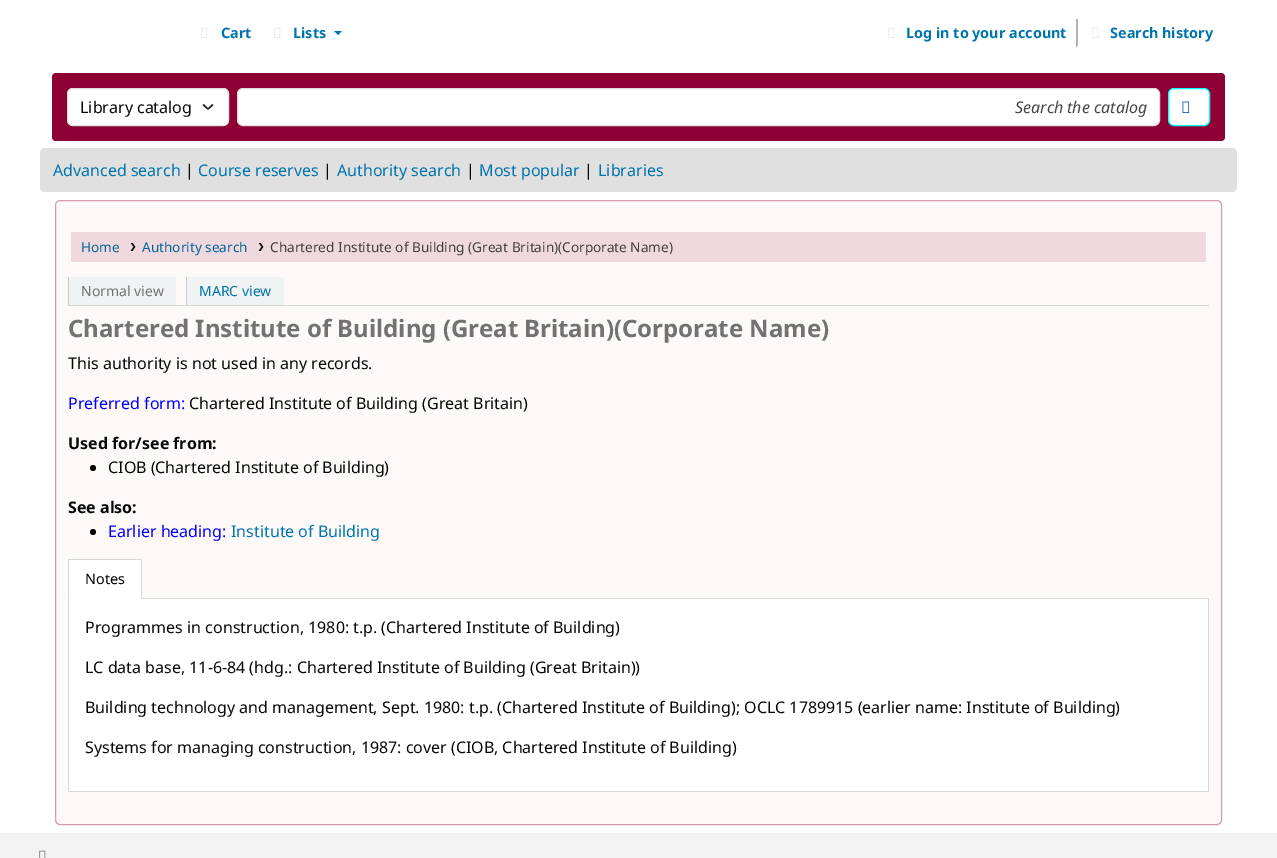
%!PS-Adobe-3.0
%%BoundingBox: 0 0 1277 858
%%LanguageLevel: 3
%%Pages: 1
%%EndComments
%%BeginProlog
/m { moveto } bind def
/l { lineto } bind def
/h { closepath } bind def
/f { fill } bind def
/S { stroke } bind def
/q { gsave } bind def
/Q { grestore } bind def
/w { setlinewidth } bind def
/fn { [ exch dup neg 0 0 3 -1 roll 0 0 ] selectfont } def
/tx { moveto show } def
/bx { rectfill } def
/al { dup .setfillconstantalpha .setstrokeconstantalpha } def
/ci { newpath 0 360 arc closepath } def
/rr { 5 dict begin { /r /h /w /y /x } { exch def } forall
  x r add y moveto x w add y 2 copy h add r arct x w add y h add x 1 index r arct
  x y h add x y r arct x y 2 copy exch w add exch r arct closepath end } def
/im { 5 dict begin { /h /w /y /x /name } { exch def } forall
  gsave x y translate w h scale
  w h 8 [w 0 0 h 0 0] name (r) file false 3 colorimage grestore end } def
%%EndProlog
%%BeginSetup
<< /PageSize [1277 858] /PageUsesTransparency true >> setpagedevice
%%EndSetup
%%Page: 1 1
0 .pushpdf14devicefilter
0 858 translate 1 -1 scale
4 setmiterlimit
1 setgray
0 0 1277 858 bx
(image0.raw) 201 27 7 11 im
/NotoSans-Bold 14.4 fn
0 0.455 0.678 setrgbcolor
(Cart) 221 38 tx
(image0.raw) 274 27 7 11 im
(Lists) 293 38 tx
334 31 m 342 31 l 338 35 l h f
(image0.raw) 888 27 7 11 im
(Log in to your account) 906 38 tx
0.71 0.698 0.71 setrgbcolor
1077 19 1 28 bx
0.933 setgray
1076 46 2 1 bx
0.71 0.698 0.71 setrgbcolor
1076 19 1 28 bx
(image0.raw) 1092 27 7 11 im
0 0.455 0.678 setrgbcolor
(Search history) 1110 38 tx
0.553 0.004 0.204 setrgbcolor
52 73 1173 68 4 rr f
1 setgray
67 88 162 38 6 rr f
0.145 setgray
1.5 w
1 setlinecap
1 setlinejoin
203.5 105 m 208 109 l 212.5 105 l S
0.867 setgray
1 w
0 setlinecap
0 setlinejoin
67.5 88.5 161 37 5.5 rr S
/NotoSans-Regular 16 fn
0.027 setgray
(Library catalog) 80 113 tx
1 setgray
237.5 88.5 922 37 5.5 rr q f Q
0.867 setgray
S
/NotoSans-Italic 16 fn
0.271 setgray
(Search the catalog) 1015 113 tx
1 setgray
1168.5 88.5 41 37 5.5 rr q f Q
0 1 1 setrgbcolor
S
(image1.raw) 1182 101 8 12 im
0.878 setgray
40 148 1197 44 5 rr f
/NotoSans-Regular 16 fn
0 0.455 0.678 setrgbcolor
(Advanced search) 53 176 tx
0.027 setgray
(|) 185 176 tx
0 0.455 0.678 setrgbcolor
(Course reserves) 198 176 tx
0.027 setgray
(|) 323 176 tx
0 0.455 0.678 setrgbcolor
(Authority search) 337 176 tx
0.027 setgray
(|) 466 176 tx
0 0.455 0.678 setrgbcolor
(Most popular) 479 176 tx
0.027 setgray
(|) 584 176 tx
0 0.455 0.678 setrgbcolor
(Libraries) 598 176 tx
0.996 0.976 0.976 setrgbcolor
55 200 1167 625 5 rr f
0.38 al
0.553 0.004 0.204 setrgbcolor
55.5 200.5 1166 624 4.5 rr S
1 al
0.937 0.851 0.875 setrgbcolor
71 232 1135 30 bx
/NotoSans-Regular 13.6 fn
0 0.388 0.58 setrgbcolor
(Home) 81 252 tx
(image2.raw) 130 243 6 8 im
(Authority search) 142 252 tx
(image2.raw) 258 243 6 8 im
0.255 0.235 0.239 setrgbcolor
(Chartered Institute of Building \(Great Britain\)\(Corporate Name\)) 270 252 tx
0.839 setgray
68 305 1141 1 bx
0.941 0.953 0.953 setrgbcolor
69 277 107 28 bx
0.788 setgray
68 277 1 28 bx
/NotoSans-Regular 14 fn
0.447 setgray
(Normal view) 81 296 tx
0.941 0.953 0.953 setrgbcolor
187 277 97 28 bx
0.788 setgray
186 277 1 28 bx
0 0.455 0.678 setrgbcolor
(MARC view) 199 296 tx
/NotoSans-Bold 24 fn
0.447 setgray
(Chartered Institute of Building \(Great Britain\)\(Corporate Name\)) 68 337 tx
/NotoSans-Regular 16 fn
0.027 setgray
(This authority is not used in any records.) 68 369 tx
0 0 1 setrgbcolor
(Preferred form:) 68 409 tx
0.027 setgray
(Chartered Institute of Building \(Great Britain\)) 189 409 tx
/NotoSans-Bold 16 fn
(Used for/see from:) 68 449 tx
93 468 3 ci f
/NotoSans-Regular 16 fn
(CIOB \(Chartered Institute of Building\)) 108 473 tx
/NotoSans-Bold 16 fn
(See also:) 68 513 tx
93 532 3 ci f
/NotoSans-Regular 16 fn
0 0 1 setrgbcolor
(Earlier heading:) 108 537 tx
0 0.455 0.678 setrgbcolor
(Institute of Building) 231 537 tx
0.867 setgray
142 598 1067 1 bx
1 setgray
68 560 74 39 bx
0.847 setgray
68 559 74 1 bx
142 559 m 142 599 l 141 598 l 141 560 l h f
68 599 m 68 559 l 69 560 l 69 598 l h f
/NotoSans-Regular 14.4 fn
0 setgray
(Notes) 85 584 tx
1 setgray
69 599 1139 192 bx
0.847 setgray
1208 599 1 193 bx
68 791 1141 1 bx
68 599 1 193 bx
/NotoSans-Regular 16 fn
0.027 setgray
(Programmes in construction, 1980: t.p. \(Chartered Institute of Building\)) 85 633 tx
(LC data base, 11-6-84 \(hdg.: Chartered Institute of Building \(Great Britain\)\)) 85 673 tx
(Building technology and management, Sept. 1980: t.p. \(Chartered Institute of Building\); OCLC 1789915 \(earlier name: Institute of Building\)) 85 713 tx
(Systems for managing construction, 1987: cover \(CIOB, Chartered Institute of Building\)) 85 753 tx
0.953 setgray
0 834 1277 24 bx
0.933 setgray
0 833 1277 1 bx
(image3.raw) 39 850 7 8 im
.poppdf14devicefilter showpage
%%EOF
